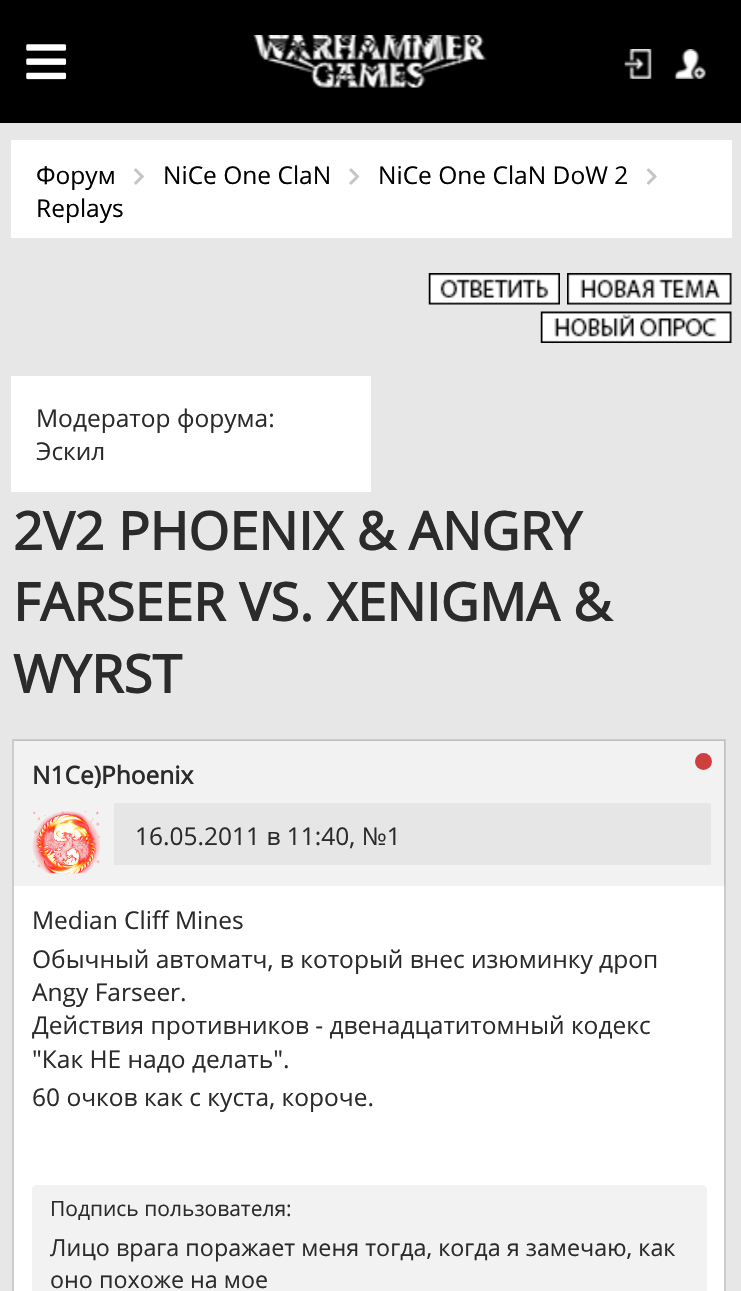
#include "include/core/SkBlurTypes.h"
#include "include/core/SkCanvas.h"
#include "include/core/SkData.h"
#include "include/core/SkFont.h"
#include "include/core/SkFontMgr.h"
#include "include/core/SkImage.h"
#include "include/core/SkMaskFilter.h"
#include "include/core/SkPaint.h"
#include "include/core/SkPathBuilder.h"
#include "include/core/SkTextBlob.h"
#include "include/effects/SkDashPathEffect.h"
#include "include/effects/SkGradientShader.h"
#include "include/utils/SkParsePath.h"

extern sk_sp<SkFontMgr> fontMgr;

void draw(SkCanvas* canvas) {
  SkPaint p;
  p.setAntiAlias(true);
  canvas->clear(SkColorSetRGB(231, 231, 231));
  p.setColor(SK_ColorBLACK);
  canvas->drawRect(SkRect::MakeLTRB(0, 0, 741, 123), p);
  canvas->drawImageRect(SkImages::DeferredFromEncodedData(SkData::MakeFromFileName("images/1.png")), SkRect::MakeLTRB(26, 44, 67, 80), SkSamplingOptions());
  canvas->drawImageRect(SkImages::DeferredFromEncodedData(SkData::MakeFromFileName("images/2.png")), SkRect::MakeLTRB(253, 35, 487, 88), SkSamplingOptions());
  canvas->drawImageRect(SkImages::DeferredFromEncodedData(SkData::MakeFromFileName("images/3.png")), SkRect::MakeLTRB(624, 49, 652, 79), SkSamplingOptions());
  canvas->drawImageRect(SkImages::DeferredFromEncodedData(SkData::MakeFromFileName("images/4.png")), SkRect::MakeLTRB(674, 49, 706, 79), SkSamplingOptions());
  p.setColor(SK_ColorWHITE);
  canvas->drawRect(SkRect::MakeLTRB(11, 140, 732, 238), p);
  canvas->drawImageRect(SkImages::DeferredFromEncodedData(SkData::MakeFromFileName("images/5.png")), SkRect::MakeLTRB(134, 168, 144, 185), SkSamplingOptions());
  canvas->drawImageRect(SkImages::DeferredFromEncodedData(SkData::MakeFromFileName("images/6.png")), SkRect::MakeLTRB(349, 168, 360, 185), SkSamplingOptions());
  canvas->drawImageRect(SkImages::DeferredFromEncodedData(SkData::MakeFromFileName("images/7.png")), SkRect::MakeLTRB(646, 168, 657, 185), SkSamplingOptions());
  canvas->drawImageRect(SkImages::DeferredFromEncodedData(SkData::MakeFromFileName("images/8.png")), SkRect::MakeLTRB(428, 273, 560, 305), SkSamplingOptions());
  canvas->drawImageRect(SkImages::DeferredFromEncodedData(SkData::MakeFromFileName("images/9.png")), SkRect::MakeLTRB(567, 273, 732, 305), SkSamplingOptions());
  canvas->drawImageRect(SkImages::DeferredFromEncodedData(SkData::MakeFromFileName("images/10.png")), SkRect::MakeLTRB(540, 311, 732, 343), SkSamplingOptions());
  canvas->drawRect(SkRect::MakeLTRB(11, 376, 371, 492), p);
  canvas->drawRect(SkRect::MakeLTRB(13, 740, 725, 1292), p);
  p.setStyle(SkPaint::kStroke_Style);
  p.setStrokeWidth(2);
  p.setColor(SkColorSetRGB(204, 204, 204));
  canvas->drawRect(SkRect::MakeLTRB(13, 740, 725, 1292), p);
  p.setStyle(SkPaint::kFill_Style);
  p.setColor(SkColorSetARGB(13, 0, 0, 0));
  canvas->drawRect(SkRect::MakeLTRB(14, 740, 725, 886), p);
  p.setColor(SkColorSetRGB(208, 62, 62));
  canvas->drawCircle(703.5f, 761.5f, 8.5f, p);
  canvas->drawImageRect(SkImages::DeferredFromEncodedData(SkData::MakeFromFileName("images/11.png")), SkRect::MakeLTRB(32, 811, 100, 874), SkSamplingOptions());
  p.setColor(SkColorSetRGB(230, 230, 230));
  canvas->drawRect(SkRect::MakeLTRB(114, 803, 711, 865), p);
  p.setColor(SkColorSetRGB(242, 242, 242));
  canvas->drawRoundRect(SkRect::MakeLTRB(32, 1185, 707, 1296), 5, 5, p);
  SkFont font1(fontMgr->matchFamilyStyle("Open Sans", SkFontStyle::Normal()), 24.5f);
  font1.setSubpixel(true);
  p.setColor(SK_ColorBLACK);
  canvas->drawString("Форум", 36, 184, font1, p);
  canvas->drawString("NiCe One ClaN", 163, 184, font1, p);
  canvas->drawString("NiCe One ClaN DoW 2", 378, 184, font1, p);
  canvas->drawString("Replays", 36, 217, font1, p);
  p.setColor(SkColorSetRGB(43, 43, 43));
  canvas->drawString("Модератор форума:", 36, 427, font1, p);
  canvas->drawString("Эскил", 36, 460, font1, p);
  SkFont font2(fontMgr->matchFamilyStyle("Open Sans", SkFontStyle::Bold()), 52.5f);
  font2.setSubpixel(true);
  canvas->drawString("2V2 PHOENIX & ANGRY", 13, 550, font2, p);
  canvas->drawString("FARSEER VS. XENIGMA &", 13, 621, font2, p);
  canvas->drawString("WYRST", 13, 693, font2, p);
  SkFont font3(fontMgr->matchFamilyStyle("Open Sans", SkFontStyle::Bold()), 24.5f);
  font3.setSubpixel(true);
  canvas->drawString("N1Ce)Phoenix", 32, 784, font3, p);
  canvas->drawString("16.05.2011 в 11:40, №1", 135, 845, font1, p);
  canvas->drawString("Median Cliff Mines", 32, 929, font1, p);
  canvas->drawString("Обычный автоматч, в который внес изюминку дроп", 32, 968, font1, p);
  canvas->drawString("Angy Farseer.", 32, 1001, font1, p);
  canvas->drawString("Действия противников - двенадцатитомный кодекс", 32, 1034, font1, p);
  canvas->drawString("\"Как НЕ надо делать\".", 32, 1068, font1, p);
  canvas->drawString("60 очков как с куста, короче.", 32, 1106, font1, p);
  SkFont font4(fontMgr->matchFamilyStyle("Open Sans", SkFontStyle::Normal()), 21);
  font4.setSubpixel(true);
  canvas->drawString("Подпись пользователя:", 50, 1216, font4, p);
  SkFont font5(fontMgr->matchFamilyStyle("Open Sans", SkFontStyle::Normal()), 23.3f);
  font5.setSubpixel(true);
  canvas->drawString("Лицо врага поражает меня тогда, когда я замечаю, как", 50, 1256, font5, p);
  canvas->drawString("оно похоже на мое", 50, 1288, font5, p);
}
